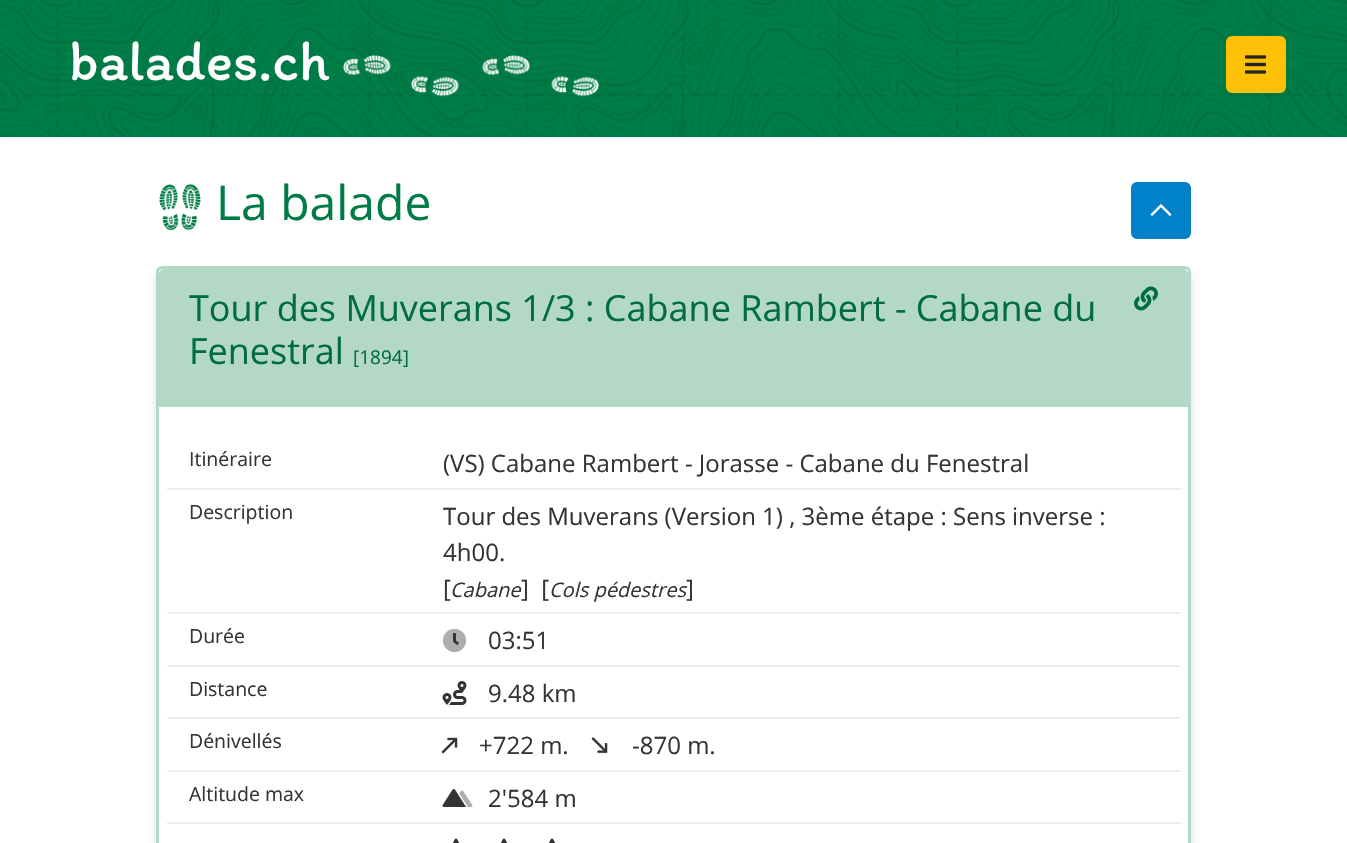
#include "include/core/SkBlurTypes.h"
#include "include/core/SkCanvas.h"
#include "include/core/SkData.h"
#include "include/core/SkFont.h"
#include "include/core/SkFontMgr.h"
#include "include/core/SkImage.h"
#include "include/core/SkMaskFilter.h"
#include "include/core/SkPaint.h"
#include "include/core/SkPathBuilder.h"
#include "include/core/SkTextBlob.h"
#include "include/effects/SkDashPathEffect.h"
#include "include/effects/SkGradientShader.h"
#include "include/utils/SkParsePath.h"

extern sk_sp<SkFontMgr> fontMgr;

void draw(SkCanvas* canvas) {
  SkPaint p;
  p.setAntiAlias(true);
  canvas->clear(SK_ColorWHITE);
  p.setColor(SkColorSetRGB(0, 124, 70));
  canvas->drawRect(SkRect::MakeLTRB(0, 136, 1347, 137), p);
  canvas->drawImageRect(SkImages::DeferredFromEncodedData(SkData::MakeFromFileName("images/1.png")), SkRect::MakeLTRB(0, 0, 1347, 137), SkSamplingOptions());
  canvas->drawImageRect(SkImages::DeferredFromEncodedData(SkData::MakeFromFileName("images/2.png")), SkRect::MakeLTRB(343, 55, 599, 97), SkSamplingOptions());
  p.setColor(SkColorSetRGB(255, 193, 7));
  canvas->drawRoundRect(SkRect::MakeLTRB(1227, 37, 1285, 92), 5, 5, p);
  p.setStyle(SkPaint::kStroke_Style);
  p.setStrokeWidth(2);
  canvas->drawRoundRect(SkRect::MakeLTRB(1227, 37, 1285, 92), 5, 5, p);
  canvas->drawImageRect(SkImages::DeferredFromEncodedData(SkData::MakeFromFileName("images/3.png")), SkRect::MakeLTRB(1245, 55, 1266, 74), SkSamplingOptions());
  canvas->drawImageRect(SkImages::DeferredFromEncodedData(SkData::MakeFromFileName("images/4.png")), SkRect::MakeLTRB(159, 183, 201, 231), SkSamplingOptions());
  p.setStyle(SkPaint::kFill_Style);
  p.setColor(SkColorSetRGB(0, 129, 200));
  canvas->drawRoundRect(SkRect::MakeLTRB(1132, 183, 1190, 238), 5, 5, p);
  p.setStyle(SkPaint::kStroke_Style);
  canvas->drawRoundRect(SkRect::MakeLTRB(1132, 183, 1190, 238), 5, 5, p);
  canvas->drawImageRect(SkImages::DeferredFromEncodedData(SkData::MakeFromFileName("images/5.png")), SkRect::MakeLTRB(1150, 204, 1172, 216), SkSamplingOptions());
  canvas->save();
  canvas->clipPath(SkPathBuilder(SkPathFillType::kEvenOdd).moveTo(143, 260).lineTo(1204, 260).lineTo(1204, 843).lineTo(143, 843).close().moveTo(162, 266).lineTo(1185, 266).cubicTo(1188.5f, 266, 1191, 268.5f, 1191, 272).lineTo(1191, 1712).cubicTo(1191, 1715.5f, 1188.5f, 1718, 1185, 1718).lineTo(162, 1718).cubicTo(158.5f, 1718, 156, 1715.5f, 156, 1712).lineTo(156, 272).cubicTo(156, 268.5f, 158.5f, 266, 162, 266).close().detach(), true);
  p.setStyle(SkPaint::kFill_Style);
  p.setColor(SkColorSetRGB(221, 221, 221));
  p.setMaskFilter(SkMaskFilter::MakeBlur(kNormal_SkBlurStyle, 4));
  canvas->drawRoundRect(SkRect::MakeLTRB(156, 273, 1191, 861), 6, 6, p);
  p.setMaskFilter(nullptr);
  canvas->restore();
  p.setStyle(SkPaint::kStroke_Style);
  p.setStrokeWidth(3);
  p.setColor(SkColorSetRGB(179, 216, 200));
  canvas->drawRoundRect(SkRect::MakeLTRB(157.5f, 267.5f, 1189.5f, 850.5f), 4.5f, 4.5f, p);
  p.setStyle(SkPaint::kFill_Style);
  canvas->drawPath(SkPathBuilder().moveTo(164, 269).lineTo(1183, 269).cubicTo(1186, 269, 1188, 271, 1188, 274).lineTo(1188, 407).lineTo(159, 407).lineTo(159, 274).cubicTo(159, 271, 161, 269, 164, 269).close().detach(), p);
  canvas->drawImageRect(SkImages::DeferredFromEncodedData(SkData::MakeFromFileName("images/6.png")), SkRect::MakeLTRB(1134, 286, 1158, 311), SkSamplingOptions());
  p.setColor(SkColorSetRGB(238, 238, 238));
  canvas->drawRect(SkRect::MakeLTRB(167, 488, 1181, 490), p);
  canvas->drawRect(SkRect::MakeLTRB(167, 612, 1181, 614), p);
  canvas->drawRect(SkRect::MakeLTRB(167, 665, 1181, 667), p);
  canvas->drawImageRect(SkImages::DeferredFromEncodedData(SkData::MakeFromFileName("images/7.png")), SkRect::MakeLTRB(442, 628, 467, 653), SkSamplingOptions());
  canvas->drawRect(SkRect::MakeLTRB(167, 717, 1181, 719), p);
  canvas->drawImageRect(SkImages::DeferredFromEncodedData(SkData::MakeFromFileName("images/8.png")), SkRect::MakeLTRB(442, 681, 467, 705), SkSamplingOptions());
  canvas->drawRect(SkRect::MakeLTRB(167, 770, 1181, 772), p);
  canvas->drawImageRect(SkImages::DeferredFromEncodedData(SkData::MakeFromFileName("images/9.png")), SkRect::MakeLTRB(441, 737, 458, 754), SkSamplingOptions());
  canvas->drawImageRect(SkImages::DeferredFromEncodedData(SkData::MakeFromFileName("images/10.png")), SkRect::MakeLTRB(591, 737, 608, 753), SkSamplingOptions());
  canvas->drawRect(SkRect::MakeLTRB(167, 822, 1181, 824), p);
  canvas->drawImageRect(SkImages::DeferredFromEncodedData(SkData::MakeFromFileName("images/11.png")), SkRect::MakeLTRB(442, 789, 473, 807), SkSamplingOptions());
  canvas->drawImageRect(SkImages::DeferredFromEncodedData(SkData::MakeFromFileName("images/12.png")), SkRect::MakeLTRB(453, 838, 460, 843), SkSamplingOptions());
  canvas->drawImageRect(SkImages::DeferredFromEncodedData(SkData::MakeFromFileName("images/12.png")), SkRect::MakeLTRB(501, 838, 508, 843), SkSamplingOptions());
  canvas->drawImageRect(SkImages::DeferredFromEncodedData(SkData::MakeFromFileName("images/12.png")), SkRect::MakeLTRB(549, 838, 556, 843), SkSamplingOptions());
  SkFont font1(fontMgr->matchFamilyStyle("Itim", SkFontStyle::Normal()), 57);
  font1.setSubpixel(true);
  p.setColor(SK_ColorWHITE);
  canvas->drawString("balades.ch", 69, 80, font1, p);
  SkFont font2(fontMgr->matchFamilyStyle("Open Sans", SkFontStyle::Normal()), 48);
  font2.setSubpixel(true);
  p.setColor(SkColorSetRGB(0, 124, 70));
  canvas->drawString("La balade", 216, 220, font2, p);
  SkFont font3(fontMgr->matchFamilyStyle("Open Sans", SkFontStyle::Normal()), 36);
  font3.setSubpixel(true);
  p.setColor(SkColorSetRGB(0, 109, 62));
  canvas->drawString("Tour des Muverans 1/3 : Cabane Rambert - Cabane du", 189, 321, font3, p);
  canvas->drawString("Fenestral", 189, 364, font3, p);
  SkFont font4(fontMgr->matchFamilyStyle("Open Sans", SkFontStyle::Normal()), 19);
  font4.setSubpixel(true);
  canvas->drawString("[1894]", 353, 364, font4, p);
  SkFont font5(fontMgr->matchFamilyStyle("Open Sans", SkFontStyle::Normal()), 19.5f);
  font5.setSubpixel(true);
  p.setColor(SkColorSetRGB(52, 52, 52));
  canvas->drawString("Itinéraire", 189, 466, font5, p);
  SkFont font6(fontMgr->matchFamilyStyle("Open Sans", SkFontStyle::Normal()), 24);
  font6.setSubpixel(true);
  canvas->drawString("(VS) Cabane Rambert - Jorasse - Cabane du Fenestral", 443, 472, font6, p);
  canvas->drawString("Description", 189, 519, font5, p);
  canvas->drawString("Tour des Muverans (Version 1) , 3ème étape : Sens inverse :", 443, 525, font6, p);
  canvas->drawString("4h00.", 443, 561, font6, p);
  canvas->drawString("[", 443, 597, font6, p);
  SkFont font7(fontMgr->matchFamilyStyle("Open Sans", SkFontStyle::Italic()), 20);
  font7.setSubpixel(true);
  canvas->drawString("Cabane", 450, 597, font7, p);
  canvas->drawString("]  [", 521, 597, font6, p);
  canvas->drawString("Cols pédestres", 549, 597, font7, p);
  canvas->drawString("]", 686, 597, font6, p);
  canvas->drawString("Durée", 189, 643, font5, p);
  canvas->drawString("03:51", 488, 649, font6, p);
  canvas->drawString("Distance", 189, 696, font5, p);
  canvas->drawString("9.48 km", 488, 702, font6, p);
  canvas->drawString("Dénivellés", 189, 748, font5, p);
  canvas->drawString("+722 m.", 479, 754, font6, p);
  canvas->drawString("-870 m.", 632, 754, font6, p);
  canvas->drawString("Altitude max", 189, 801, font5, p);
  canvas->drawString("2'584 m", 488, 807, font6, p);
}
